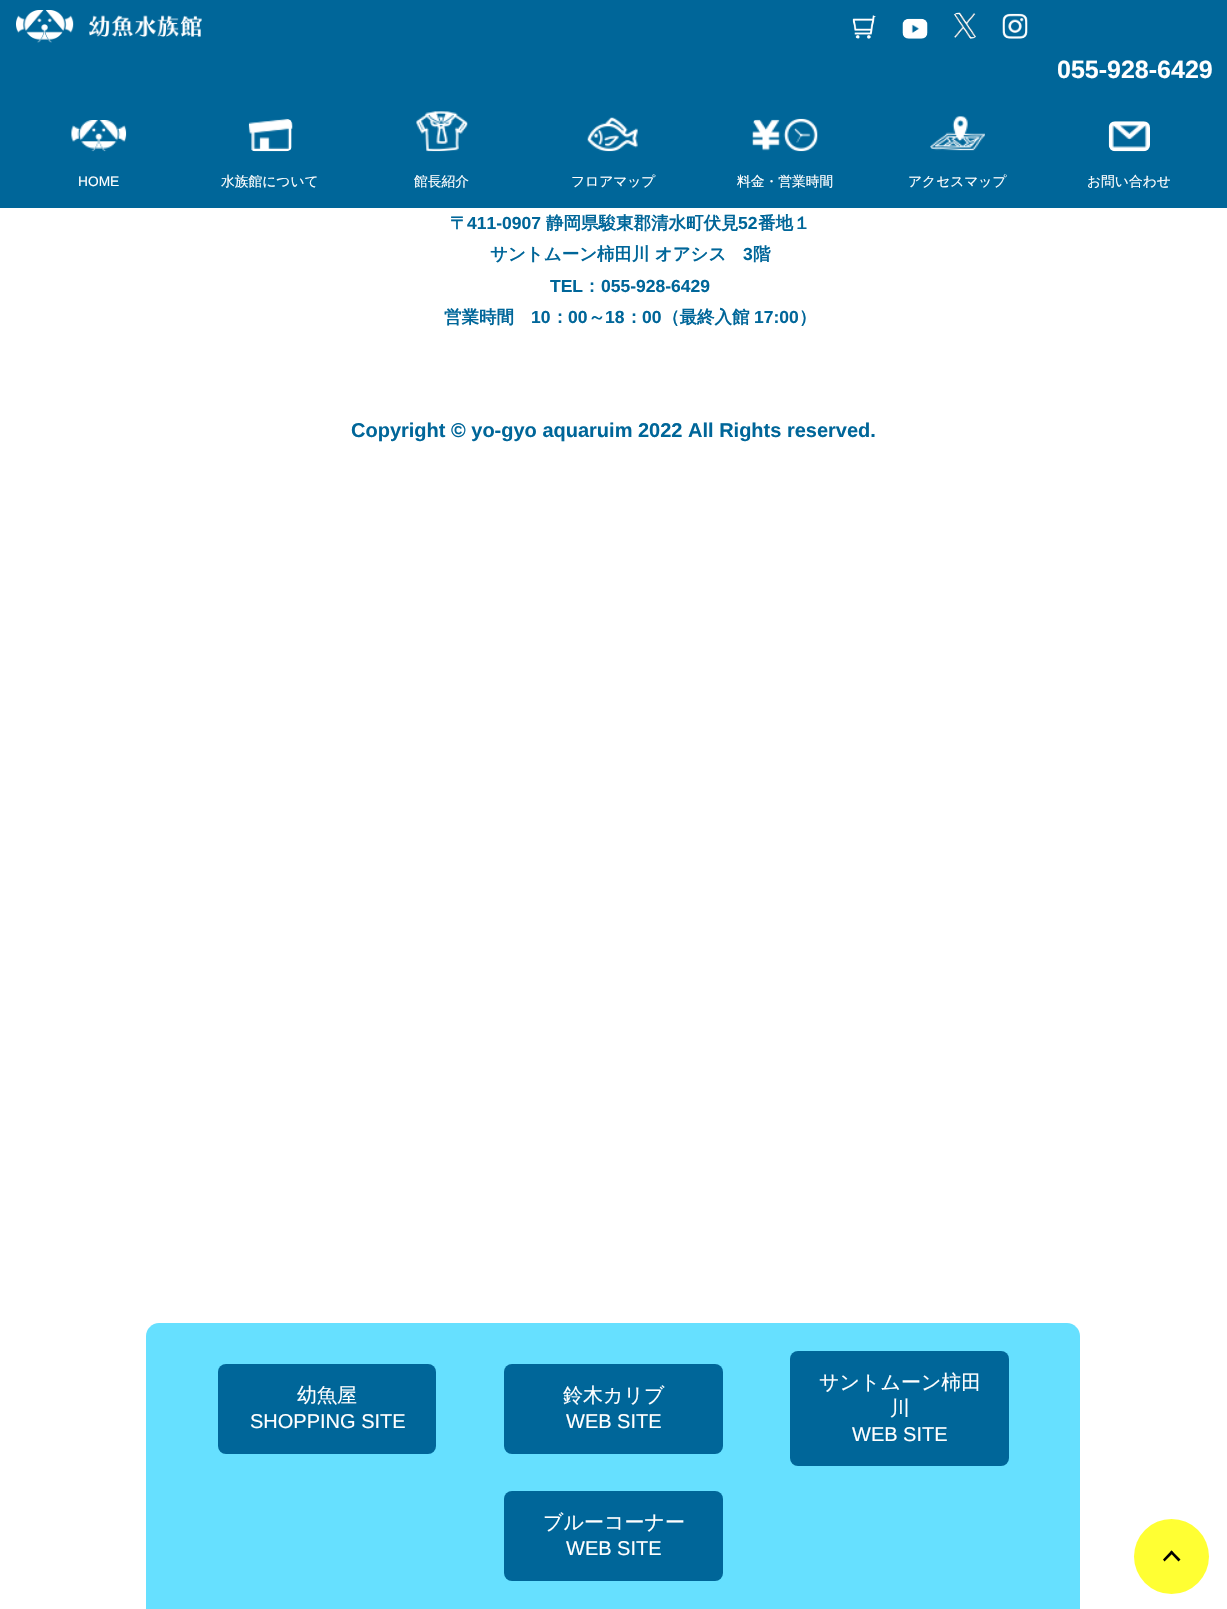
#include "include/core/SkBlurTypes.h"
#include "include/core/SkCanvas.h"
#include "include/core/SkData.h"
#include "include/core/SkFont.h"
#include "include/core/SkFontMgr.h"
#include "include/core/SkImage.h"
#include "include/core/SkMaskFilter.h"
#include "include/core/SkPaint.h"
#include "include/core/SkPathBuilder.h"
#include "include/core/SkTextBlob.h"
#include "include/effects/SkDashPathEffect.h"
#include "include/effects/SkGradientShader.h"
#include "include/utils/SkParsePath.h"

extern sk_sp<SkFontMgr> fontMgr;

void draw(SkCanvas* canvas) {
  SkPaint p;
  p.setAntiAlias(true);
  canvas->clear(SK_ColorWHITE);
  p.setColor(SkColorSetRGB(0, 102, 153));
  canvas->drawRect(SkRect::MakeLTRB(0, 0, 1227, 208), p);
  canvas->drawImageRect(SkImages::DeferredFromEncodedData(SkData::MakeFromFileName("images/1.png")), SkRect::MakeLTRB(16, 10, 202, 43), SkSamplingOptions());
  canvas->drawImageRect(SkImages::DeferredFromEncodedData(SkData::MakeFromFileName("images/2.png")), SkRect::MakeLTRB(852, 15, 876, 39), SkSamplingOptions());
  canvas->drawImageRect(SkImages::DeferredFromEncodedData(SkData::MakeFromFileName("images/3.png")), SkRect::MakeLTRB(902, 18, 928, 39), SkSamplingOptions());
  canvas->drawImageRect(SkImages::DeferredFromEncodedData(SkData::MakeFromFileName("images/4.png")), SkRect::MakeLTRB(953, 12, 976, 39), SkSamplingOptions());
  canvas->drawImageRect(SkImages::DeferredFromEncodedData(SkData::MakeFromFileName("images/5.png")), SkRect::MakeLTRB(1002, 13, 1028, 39), SkSamplingOptions());
  canvas->drawImageRect(SkImages::DeferredFromEncodedData(SkData::MakeFromFileName("images/6.png")), SkRect::MakeLTRB(71, 120, 127, 152), SkSamplingOptions());
  canvas->drawImageRect(SkImages::DeferredFromEncodedData(SkData::MakeFromFileName("images/7.png")), SkRect::MakeLTRB(248, 118, 293, 152), SkSamplingOptions());
  canvas->drawImageRect(SkImages::DeferredFromEncodedData(SkData::MakeFromFileName("images/8.png")), SkRect::MakeLTRB(416, 111, 468, 152), SkSamplingOptions());
  canvas->drawImageRect(SkImages::DeferredFromEncodedData(SkData::MakeFromFileName("images/9.png")), SkRect::MakeLTRB(587, 117, 638, 152), SkSamplingOptions());
  canvas->drawImageRect(SkImages::DeferredFromEncodedData(SkData::MakeFromFileName("images/10.png")), SkRect::MakeLTRB(752, 118, 818, 152), SkSamplingOptions());
  canvas->drawImageRect(SkImages::DeferredFromEncodedData(SkData::MakeFromFileName("images/11.png")), SkRect::MakeLTRB(930, 116, 985, 151), SkSamplingOptions());
  canvas->drawImageRect(SkImages::DeferredFromEncodedData(SkData::MakeFromFileName("images/12.png")), SkRect::MakeLTRB(1108, 121, 1150, 152), SkSamplingOptions());
  p.setColor(SkColorSetRGB(102, 224, 255));
  canvas->drawPath(SkPathBuilder().moveTo(159, 1323).lineTo(1067, 1323).cubicTo(1074, 1323, 1080, 1329, 1080, 1336).lineTo(1080, 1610).lineTo(146, 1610).lineTo(146, 1336).cubicTo(146, 1329, 152, 1323, 159, 1323).close().detach(), p);
  p.setColor(SkColorSetRGB(0, 102, 153));
  canvas->drawRoundRect(SkRect::MakeLTRB(218, 1364, 436, 1454), 8, 8, p);
  canvas->drawRoundRect(SkRect::MakeLTRB(504, 1364, 723, 1454), 8, 8, p);
  canvas->drawRoundRect(SkRect::MakeLTRB(790, 1351, 1009, 1466), 8, 8, p);
  canvas->drawRoundRect(SkRect::MakeLTRB(504, 1491, 723, 1581), 8, 8, p);
  p.setColor(SkColorSetRGB(255, 255, 51));
  canvas->drawCircle(1171.5f, 1556.5f, 37.5f, p);
  p.setColor(SK_ColorBLACK);
  canvas->drawPath(SkPathBuilder().moveTo(1163, 1559.5f).lineTo(1171.5f, 1550.5f).lineTo(1173.5f, 1552.5f).lineTo(1164.5f, 1561.5f).close().detach(), p);
  canvas->drawPath(SkPathBuilder().moveTo(1170, 1552.5f).lineTo(1171.5f, 1550.5f).lineTo(1180.5f, 1559.5f).lineTo(1178.5f, 1561.5f).close().detach(), p);
  SkFont font1(fontMgr->matchFamilyStyle("Liberation Sans", SkFontStyle::Bold()), 25);
  font1.setSubpixel(true);
  p.setColor(SK_ColorWHITE);
  canvas->drawString("055-928-6429", 1057, 78, font1, p);
  SkFont font2(fontMgr->matchFamilyStyle("Liberation Sans", SkFontStyle::Normal()), 13.75f);
  font2.setSubpixel(true);
  canvas->drawString("HOME", 78, 186, font2, p);
  SkFont font3(fontMgr->matchFamilyStyle("WenQuanYi Zen Hei", SkFontStyle(500, SkFontStyle::kNormal_Width, SkFontStyle::kUpright_Slant)), 13.75f);
  font3.setSubpixel(true);
  canvas->drawString("水族館について", 221, 186, font3, p);
  canvas->drawString("館長紹介", 414, 186, font3, p);
  canvas->drawString("フロアマップ", 571, 186, font3, p);
  canvas->drawString("料金・営業時間", 737, 186, font3, p);
  canvas->drawString("アクセスマップ", 908, 186, font3, p);
  canvas->drawString("お問い合わせ", 1087, 186, font3, p);
  SkFont font4(fontMgr->matchFamilyStyle("WenQuanYi Zen Hei", SkFontStyle::Bold()), 17.5f);
  font4.setSubpixel(true);
  p.setColor(SkColorSetRGB(0, 102, 153));
  canvas->drawString("〒", 450, 229, font4, p);
  SkFont font5(fontMgr->matchFamilyStyle("Liberation Sans", SkFontStyle::Bold()), 17.5f);
  font5.setSubpixel(true);
  canvas->drawString("411-0907", 467, 229, font5, p);
  canvas->drawString("静岡県駿東郡清水町伏見", 546, 229, font4, p);
  canvas->drawString("52", 738, 229, font5, p);
  canvas->drawString("番地１", 758, 229, font4, p);
  canvas->drawString("サントムーン柿田川 オアシス", 490, 260, font4, p);
  canvas->drawString("3", 743, 260, font5, p);
  canvas->drawString("階", 753, 260, font4, p);
  canvas->drawString("TEL", 550, 292, font5, p);
  canvas->drawString("：", 583, 292, font4, p);
  canvas->drawString("055-928-6429", 601, 292, font5, p);
  canvas->drawString("営業時間", 444, 323, font4, p);
  canvas->drawString("10", 531, 323, font5, p);
  canvas->drawString("：", 551, 323, font4, p);
  canvas->drawString("00", 568, 323, font5, p);
  canvas->drawString("～", 588, 323, font4, p);
  canvas->drawString("18", 605, 323, font5, p);
  canvas->drawString("：", 625, 323, font4, p);
  canvas->drawString("00", 642, 323, font5, p);
  canvas->drawString("（最終入館", 662, 323, font4, p);
  canvas->drawString("17:00", 754, 323, font5, p);
  canvas->drawString("）", 799, 323, font4, p);
  SkFont font6(fontMgr->matchFamilyStyle("Liberation Sans", SkFontStyle::Bold()), 20);
  font6.setSubpixel(true);
  canvas->drawString("Copyright © yo-gyo aquaruim 2022 All Rights reserved.", 351, 437, font6, p);
  SkFont font7(fontMgr->matchFamilyStyle("WenQuanYi Zen Hei", SkFontStyle(500, SkFontStyle::kNormal_Width, SkFontStyle::kUpright_Slant)), 20);
  font7.setSubpixel(true);
  p.setColor(SK_ColorWHITE);
  canvas->drawString("幼魚屋", 297, 1402, font7, p);
  SkFont font8(fontMgr->matchFamilyStyle("Liberation Sans", SkFontStyle::Normal()), 20);
  font8.setSubpixel(true);
  canvas->drawString("SHOPPING SITE", 250, 1428, font8, p);
  canvas->drawString("鈴木カリブ", 563, 1402, font7, p);
  canvas->drawString("WEB SITE", 566, 1428, font8, p);
  canvas->drawString("サントムーン柿田", 819, 1389, font7, p);
  canvas->drawString("川", 890, 1415, font7, p);
  canvas->drawString("WEB SITE", 852, 1441, font8, p);
  canvas->drawString("ブルーコーナー", 543, 1529, font7, p);
  canvas->drawString("WEB SITE", 566, 1555, font8, p);
}
